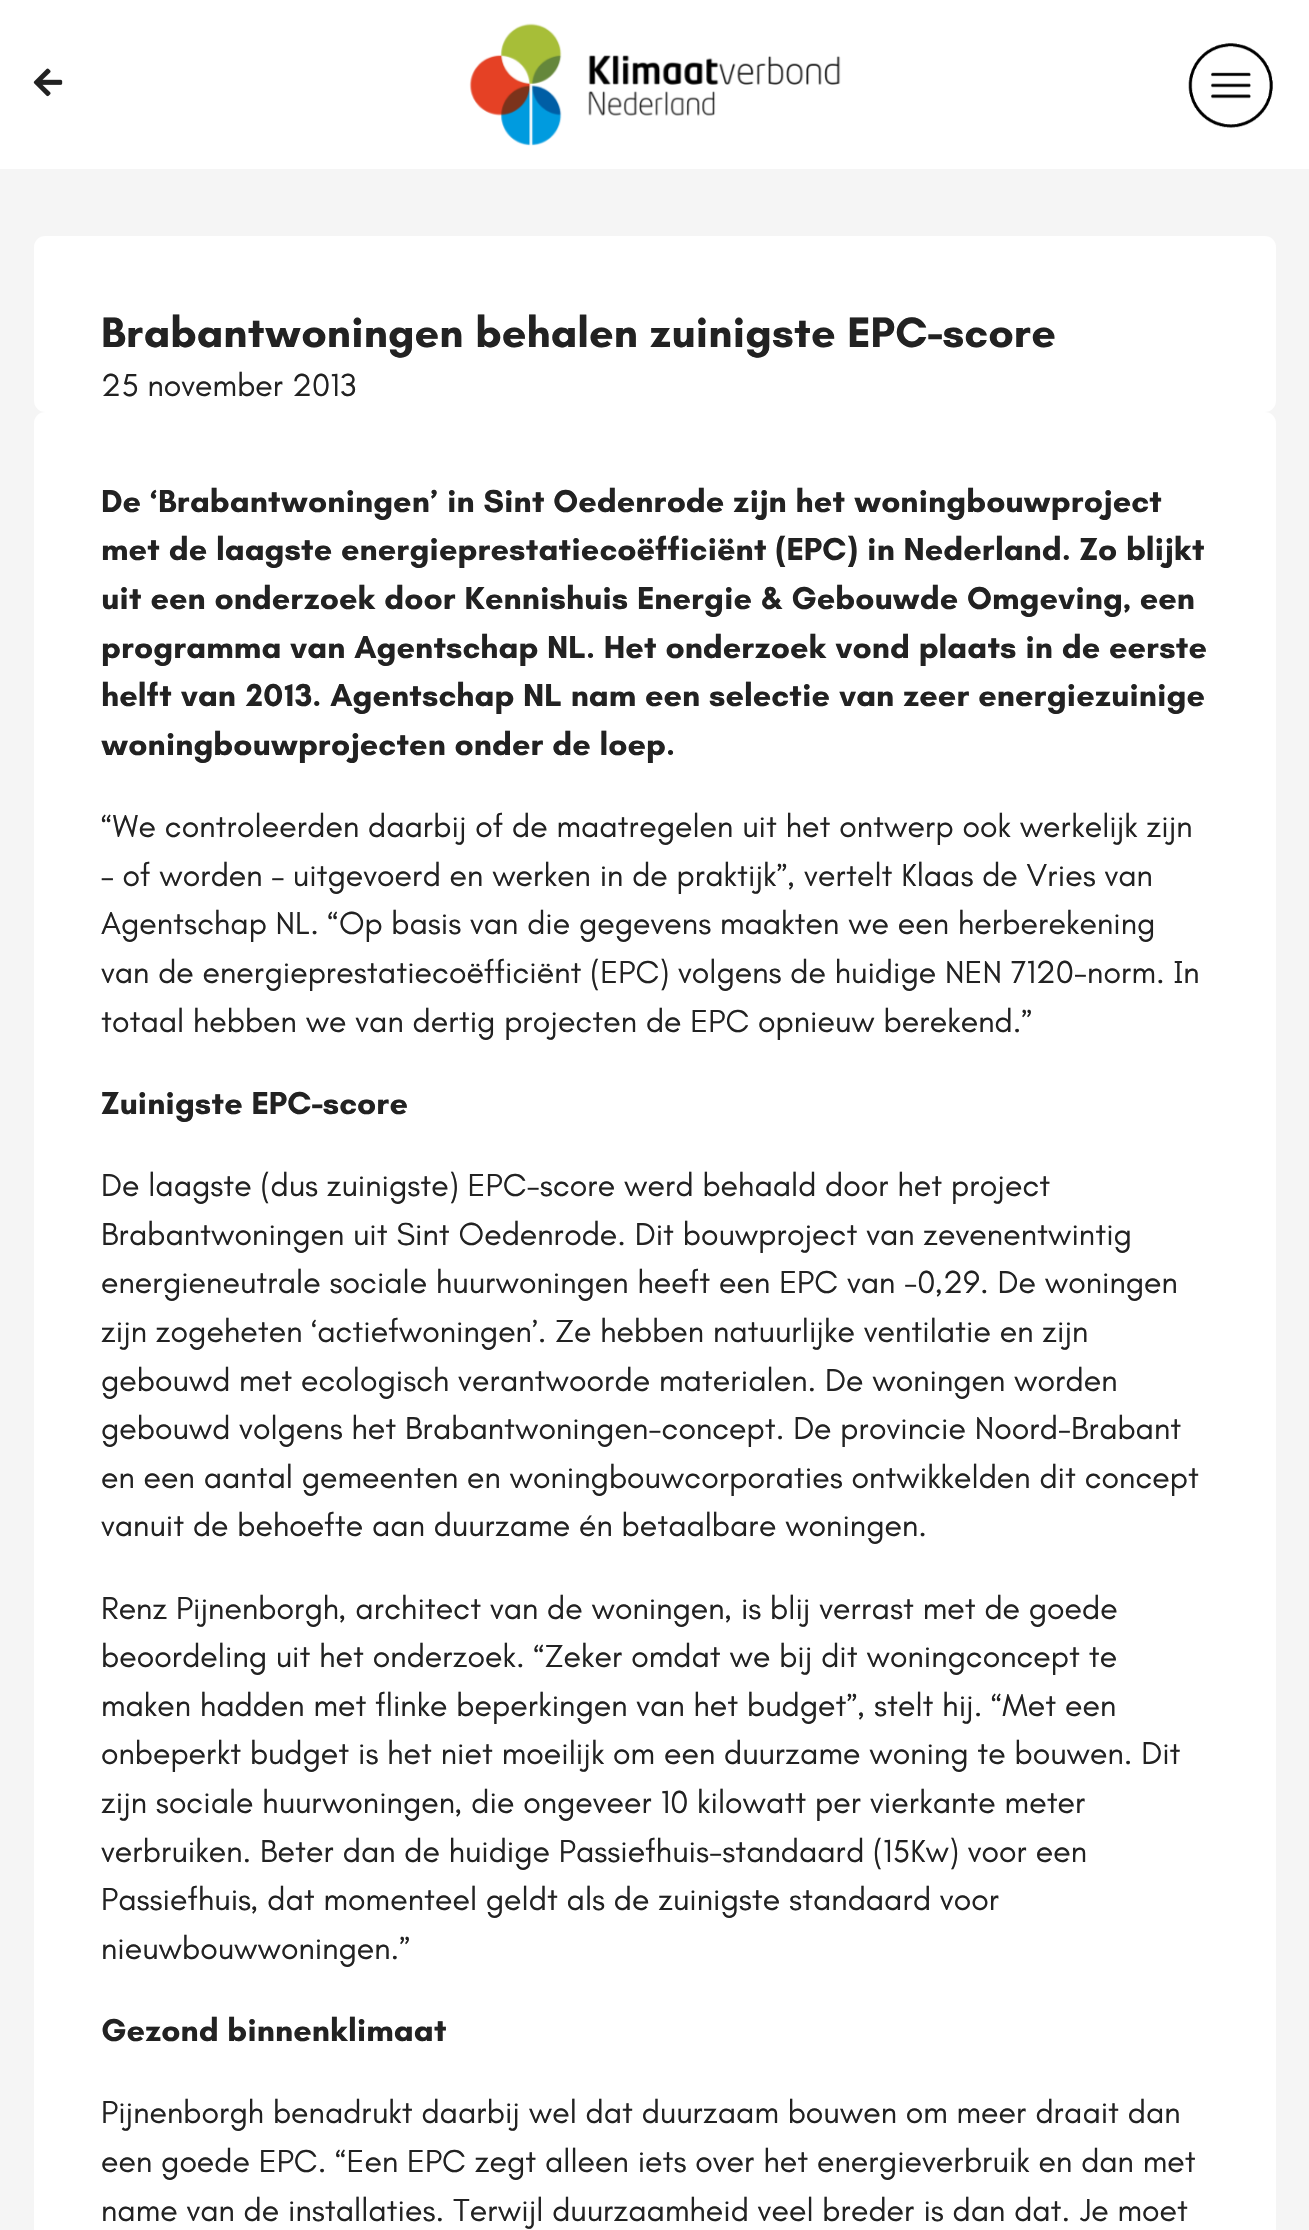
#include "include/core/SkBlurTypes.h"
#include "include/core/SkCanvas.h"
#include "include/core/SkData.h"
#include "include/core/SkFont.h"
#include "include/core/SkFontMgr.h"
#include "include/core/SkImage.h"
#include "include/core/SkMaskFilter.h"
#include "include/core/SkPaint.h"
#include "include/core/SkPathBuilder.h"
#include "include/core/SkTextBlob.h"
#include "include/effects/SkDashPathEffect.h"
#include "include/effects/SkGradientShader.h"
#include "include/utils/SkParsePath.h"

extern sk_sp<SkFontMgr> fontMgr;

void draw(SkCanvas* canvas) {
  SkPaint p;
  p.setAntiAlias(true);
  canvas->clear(SkColorSetRGB(245, 245, 245));
  p.setColor(SK_ColorWHITE);
  canvas->drawRect(SkRect::MakeLTRB(0, 0, 1309, 169), p);
  canvas->drawImageRect(SkImages::DeferredFromEncodedData(SkData::MakeFromFileName("images/1.png")), SkRect::MakeLTRB(33, 68, 63, 97), SkSamplingOptions());
  canvas->drawImageRect(SkImages::DeferredFromEncodedData(SkData::MakeFromFileName("images/2.png")), SkRect::MakeLTRB(469, 23, 841, 146), SkSamplingOptions());
  canvas->drawImageRect(SkImages::DeferredFromEncodedData(SkData::MakeFromFileName("images/3.png")), SkRect::MakeLTRB(1188, 43, 1273, 128), SkSamplingOptions());
  canvas->drawRoundRect(SkRect::MakeLTRB(34, 236, 1276, 412), 11, 11, p);
  canvas->drawRoundRect(SkRect::MakeLTRB(34, 412, 1276, 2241), 11, 11, p);
  SkFont font1(fontMgr->matchFamilyStyle("Teachers", SkFontStyle::Bold()), 43.2f);
  font1.setSubpixel(true);
  p.setColor(SkColorSetRGB(34, 34, 34));
  canvas->drawString("Brabantwoningen behalen zuinigste EPC-score", 101, 347, font1, p);
  SkFont font2(fontMgr->matchFamilyStyle("Teachers", SkFontStyle::Normal()), 32.4f);
  font2.setSubpixel(true);
  canvas->drawString("25 november 2013", 101, 396, font2, p);
  SkFont font3(fontMgr->matchFamilyStyle("Teachers", SkFontStyle::Bold()), 32.4f);
  font3.setSubpixel(true);
  canvas->drawString("De ‘Brabantwoningen’ in Sint Oedenrode zijn het woningbouwproject", 101, 512, font3, p);
  canvas->drawString("met de laagste energieprestatiecoëfficiënt (EPC) in Nederland. Zo blijkt", 101, 560, font3, p);
  canvas->drawString("uit een onderzoek door Kennishuis Energie & Gebouwde Omgeving, een", 101, 609, font3, p);
  canvas->drawString("programma van Agentschap NL. Het onderzoek vond plaats in de eerste", 101, 658, font3, p);
  canvas->drawString("helft van 2013. Agentschap NL nam een selectie van zeer energiezuinige", 101, 706, font3, p);
  canvas->drawString("woningbouwprojecten onder de loep.", 101, 755, font3, p);
  canvas->drawString("“We controleerden daarbij of de maatregelen uit het ontwerp ook werkelijk zijn", 101, 837, font2, p);
  canvas->drawString("– of worden – uitgevoerd en werken in de praktijk”, vertelt Klaas de Vries van", 101, 886, font2, p);
  canvas->drawString("Agentschap NL. “Op basis van die gegevens maakten we een herberekening", 101, 934, font2, p);
  canvas->drawString("van de energieprestatiecoëfficiënt (EPC) volgens de huidige NEN 7120-norm. In", 101, 983, font2, p);
  canvas->drawString("totaal hebben we van dertig projecten de EPC opnieuw berekend.”", 101, 1032, font2, p);
  canvas->drawString("Zuinigste EPC-score", 101, 1114, font3, p);
  canvas->drawString("De laagste (dus zuinigste) EPC-score werd behaald door het project", 101, 1196, font2, p);
  canvas->drawString("Brabantwoningen uit Sint Oedenrode. Dit bouwproject van zevenentwintig", 101, 1245, font2, p);
  canvas->drawString("energieneutrale sociale huurwoningen heeft een EPC van -0,29. De woningen", 101, 1293, font2, p);
  canvas->drawString("zijn zogeheten ‘actiefwoningen’. Ze hebben natuurlijke ventilatie en zijn", 101, 1342, font2, p);
  canvas->drawString("gebouwd met ecologisch verantwoorde materialen. De woningen worden", 101, 1391, font2, p);
  canvas->drawString("gebouwd volgens het Brabantwoningen-concept. De provincie Noord-Brabant", 101, 1439, font2, p);
  canvas->drawString("en een aantal gemeenten en woningbouwcorporaties ontwikkelden dit concept", 101, 1488, font2, p);
  canvas->drawString("vanuit de behoefte aan duurzame én betaalbare woningen.", 101, 1536, font2, p);
  canvas->drawString("Renz Pijnenborgh, architect van de woningen, is blij verrast met de goede", 101, 1619, font2, p);
  canvas->drawString("beoordeling uit het onderzoek. “Zeker omdat we bij dit woningconcept te", 101, 1667, font2, p);
  canvas->drawString("maken hadden met flinke beperkingen van het budget”, stelt hij. “Met een", 101, 1716, font2, p);
  canvas->drawString("onbeperkt budget is het niet moeilijk om een duurzame woning te bouwen. Dit", 101, 1764, font2, p);
  canvas->drawString("zijn sociale huurwoningen, die ongeveer 10 kilowatt per vierkante meter", 101, 1813, font2, p);
  canvas->drawString("verbruiken. Beter dan de huidige Passiefhuis-standaard (15Kw) voor een", 101, 1862, font2, p);
  canvas->drawString("Passiefhuis, dat momenteel geldt als de zuinigste standaard voor", 101, 1910, font2, p);
  canvas->drawString("nieuwbouwwoningen.”", 101, 1959, font2, p);
  canvas->drawString("Gezond binnenklimaat", 101, 2041, font3, p);
  canvas->drawString("Pijnenborgh benadrukt daarbij wel dat duurzaam bouwen om meer draait dan", 101, 2123, font2, p);
  canvas->drawString("een goede EPC. “Een EPC zegt alleen iets over het energieverbruik en dan met", 101, 2172, font2, p);
  canvas->drawString("name van de installaties. Terwijl duurzaamheid veel breder is dan dat. Je moet", 101, 2221, font2, p);
}
